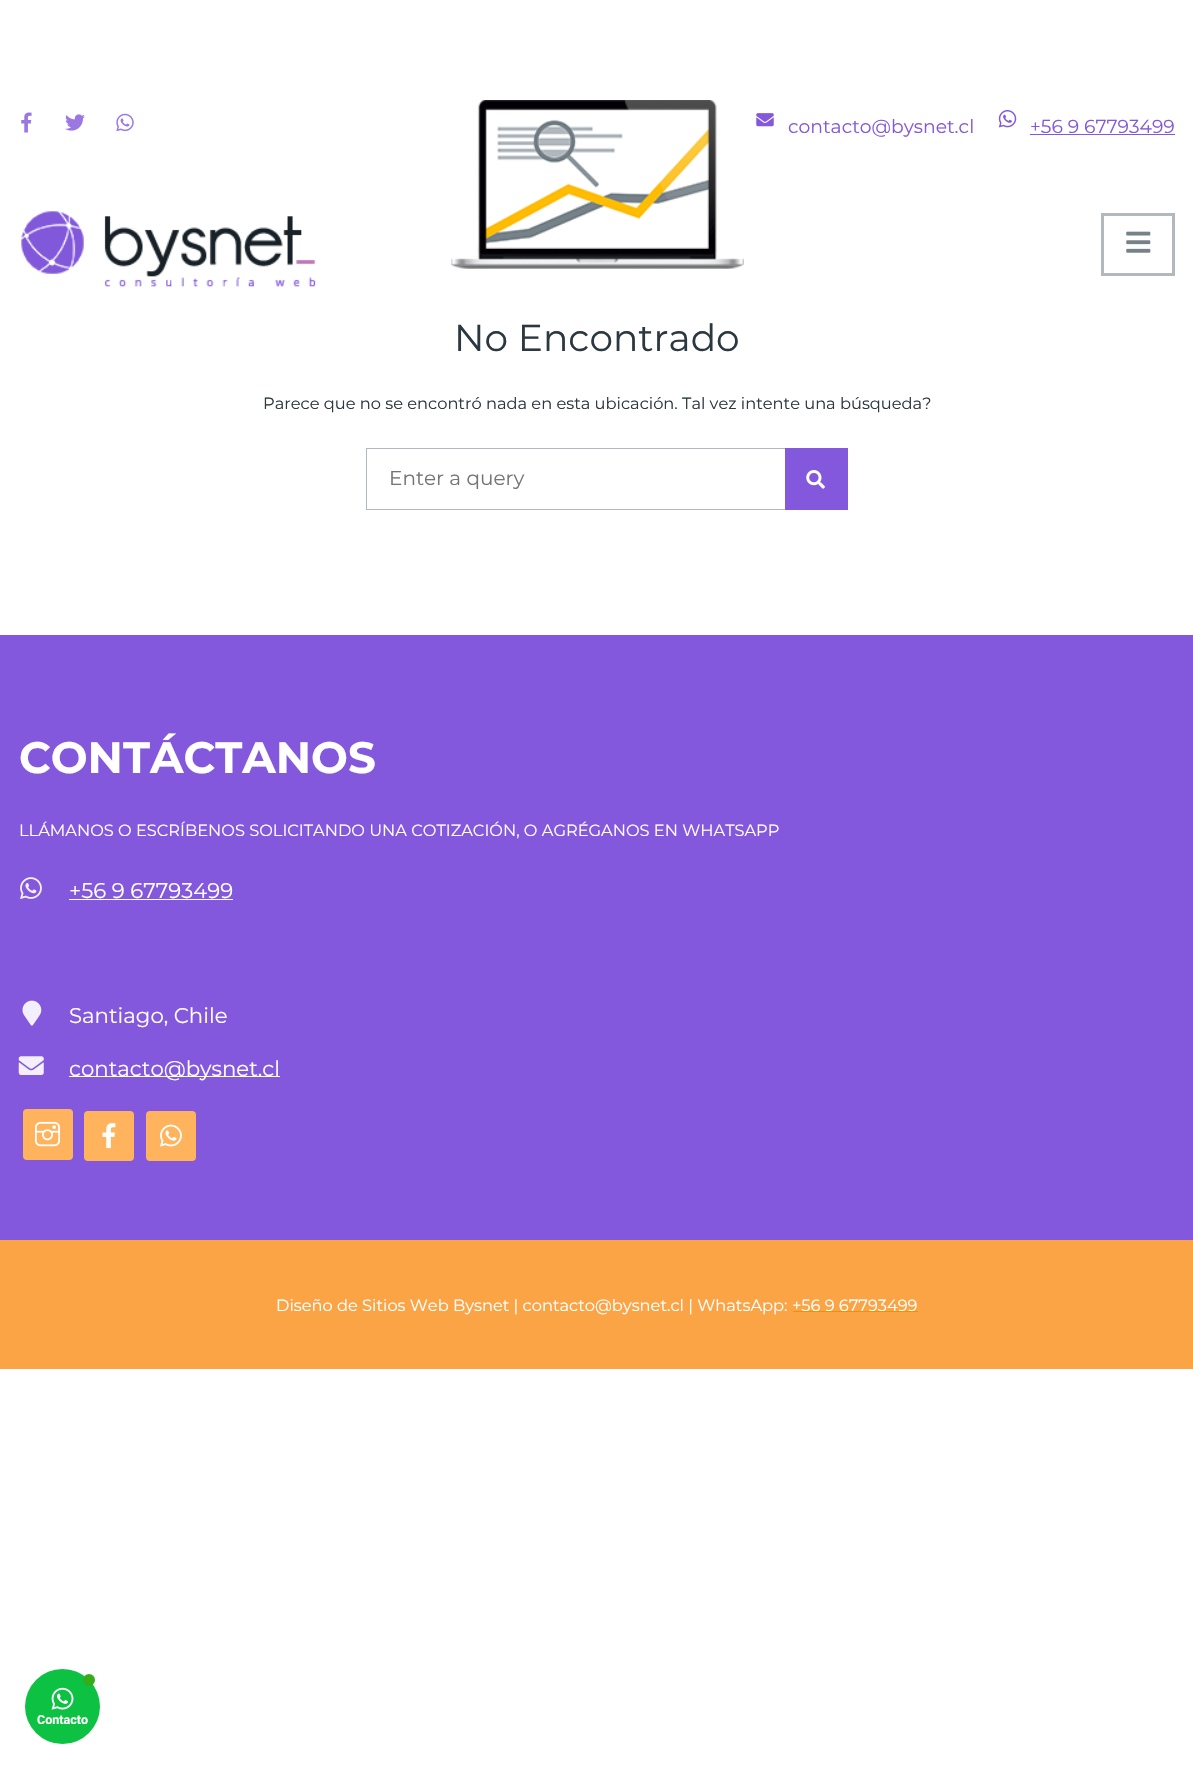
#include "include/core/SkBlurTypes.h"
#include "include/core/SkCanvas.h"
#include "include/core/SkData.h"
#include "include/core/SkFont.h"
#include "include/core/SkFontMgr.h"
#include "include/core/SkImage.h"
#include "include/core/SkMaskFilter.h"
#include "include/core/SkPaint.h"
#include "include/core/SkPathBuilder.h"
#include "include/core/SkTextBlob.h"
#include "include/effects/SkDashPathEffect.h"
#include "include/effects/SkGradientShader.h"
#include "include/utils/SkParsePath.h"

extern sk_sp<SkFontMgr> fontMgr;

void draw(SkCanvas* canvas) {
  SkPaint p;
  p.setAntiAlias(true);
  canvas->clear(SK_ColorWHITE);
  canvas->drawImageRect(SkImages::DeferredFromEncodedData(SkData::MakeFromFileName("images/1.png")), SkRect::MakeLTRB(21, 112, 32, 133), SkSamplingOptions());
  canvas->drawImageRect(SkImages::DeferredFromEncodedData(SkData::MakeFromFileName("images/2.png")), SkRect::MakeLTRB(65, 114, 85, 131), SkSamplingOptions());
  canvas->drawImageRect(SkImages::DeferredFromEncodedData(SkData::MakeFromFileName("images/3.png")), SkRect::MakeLTRB(116, 113, 134, 132), SkSamplingOptions());
  canvas->drawImageRect(SkImages::DeferredFromEncodedData(SkData::MakeFromFileName("images/4.png")), SkRect::MakeLTRB(756, 113, 774, 127), SkSamplingOptions());
  canvas->drawImageRect(SkImages::DeferredFromEncodedData(SkData::MakeFromFileName("images/5.png")), SkRect::MakeLTRB(998, 110, 1017, 128), SkSamplingOptions());
  p.setColor(SkColorSetRGB(131, 88, 220));
  canvas->drawRect(SkRect::MakeLTRB(1030, 134, 1175, 135), p);
  canvas->drawImageRect(SkImages::DeferredFromEncodedData(SkData::MakeFromFileName("images/6.png")), SkRect::MakeLTRB(21, 211, 316, 287), SkSamplingOptions());
  p.setStyle(SkPaint::kStroke_Style);
  p.setStrokeWidth(3);
  p.setColor(SkColorSetRGB(178, 185, 190));
  canvas->drawRect(SkRect::MakeLTRB(1102.5f, 214.5f, 1173.5f, 274.5f), p);
  canvas->drawImageRect(SkImages::DeferredFromEncodedData(SkData::MakeFromFileName("images/7.png")), SkRect::MakeLTRB(1126, 231, 1151, 253), SkSamplingOptions());
  canvas->drawImageRect(SkImages::DeferredFromEncodedData(SkData::MakeFromFileName("images/8.png")), SkRect::MakeLTRB(451, 100, 744, 269), SkSamplingOptions());
  p.setStrokeWidth(1);
  canvas->drawRect(SkRect::MakeLTRB(366.5f, 448.5f, 847.5f, 509.5f), p);
  p.setStyle(SkPaint::kFill_Style);
  p.setColor(SkColorSetRGB(131, 88, 220));
  canvas->drawRect(SkRect::MakeLTRB(785, 448, 848, 510), p);
  canvas->drawImageRect(SkImages::DeferredFromEncodedData(SkData::MakeFromFileName("images/9.png")), SkRect::MakeLTRB(806, 470, 825, 489), SkSamplingOptions());
  canvas->drawRect(SkRect::MakeLTRB(0, 635, 1193, 1240), p);
  canvas->drawImageRect(SkImages::DeferredFromEncodedData(SkData::MakeFromFileName("images/10.png")), SkRect::MakeLTRB(20, 877, 42, 899), SkSamplingOptions());
  p.setColor(SK_ColorWHITE);
  canvas->drawRect(SkRect::MakeLTRB(69, 899, 233, 900), p);
  canvas->drawImageRect(SkImages::DeferredFromEncodedData(SkData::MakeFromFileName("images/11.png")), SkRect::MakeLTRB(22, 1000, 42, 1026), SkSamplingOptions());
  canvas->drawImageRect(SkImages::DeferredFromEncodedData(SkData::MakeFromFileName("images/12.png")), SkRect::MakeLTRB(18, 1056, 44, 1075), SkSamplingOptions());
  canvas->drawRect(SkRect::MakeLTRB(69, 1076, 280, 1077), p);
  p.setColor(SkColorSetRGB(255, 179, 92));
  canvas->drawRoundRect(SkRect::MakeLTRB(23, 1109, 73, 1160), 4, 4, p);
  canvas->drawImageRect(SkImages::DeferredFromEncodedData(SkData::MakeFromFileName("images/13.png")), SkRect::MakeLTRB(35, 1121, 60, 1147), SkSamplingOptions());
  canvas->drawRoundRect(SkRect::MakeLTRB(84, 1111, 134, 1161), 4, 4, p);
  canvas->drawImageRect(SkImages::DeferredFromEncodedData(SkData::MakeFromFileName("images/14.png")), SkRect::MakeLTRB(102, 1123, 116, 1149), SkSamplingOptions());
  canvas->drawRoundRect(SkRect::MakeLTRB(146, 1111, 196, 1161), 4, 4, p);
  canvas->drawImageRect(SkImages::DeferredFromEncodedData(SkData::MakeFromFileName("images/15.png")), SkRect::MakeLTRB(160, 1124, 182, 1147), SkSamplingOptions());
  p.setColor(SkColorSetRGB(251, 164, 70));
  canvas->drawRect(SkRect::MakeLTRB(0, 1240, 1193, 1369), p);
  p.setColor(SkColorSetRGB(238, 146, 0));
  canvas->drawRect(SkRect::MakeLTRB(793, 1311, 918, 1312), p);
  p.setColor(SkColorSetRGB(13, 193, 67));
  canvas->drawCircle(62.5f, 1706.5f, 37.5f, p);
  p.setColor(SkColorSetRGB(53, 172, 25));
  canvas->drawCircle(89, 1680, 6, p);
  canvas->drawImageRect(SkImages::DeferredFromEncodedData(SkData::MakeFromFileName("images/16.png")), SkRect::MakeLTRB(51, 1687, 74, 1710), SkSamplingOptions());
  SkFont font1(fontMgr->matchFamilyStyle("Montserrat", SkFontStyle::Normal()), 18.75f);
  font1.setSubpixel(true);
  p.setColor(SkColorSetRGB(131, 88, 220));
  canvas->drawString("contacto@bysnet.cl", 788, 133, font1, p);
  canvas->drawString("+56 9 67793499", 1030, 133, font1, p);
  SkFont font2(fontMgr->matchFamilyStyle("Montserrat", SkFontStyle::Normal()), 37.5f);
  font2.setSubpixel(true);
  p.setColor(SkColorSetRGB(44, 56, 64));
  canvas->drawString("No Encontrado", 454, 351, font2, p);
  SkFont font3(fontMgr->matchFamilyStyle("Montserrat", SkFontStyle::Normal()), 16.25f);
  font3.setSubpixel(true);
  canvas->drawString("Parece que no se encontró nada en esta ubicación. Tal vez intente una búsqueda?", 263, 409, font3, p);
  SkFont font4(fontMgr->matchFamilyStyle("Montserrat", SkFontStyle::Normal()), 20);
  font4.setSubpixel(true);
  p.setColor(SkColorSetRGB(117, 117, 117));
  canvas->drawString("Enter a query", 389, 485, font4, p);
  SkFont font5(fontMgr->matchFamilyStyle("Montserrat", SkFontStyle(100, SkFontStyle::kNormal_Width, SkFontStyle::kUpright_Slant)), 43.75f);
  font5.setSubpixel(true);
  p.setColor(SK_ColorWHITE);
  canvas->drawString("CONTÁCTANOS", 19, 773, font5, p);
  canvas->drawString("LLÁMANOS O ESCRÍBENOS SOLICITANDO UNA COTIZACIÓN, O AGRÉGANOS EN WHATSAPP", 19, 836, font3, p);
  SkFont font6(fontMgr->matchFamilyStyle("Montserrat", SkFontStyle::Normal()), 21.25f);
  font6.setSubpixel(true);
  canvas->drawString("+56 9 67793499", 69, 898, font6, p);
  canvas->drawString("Santiago, Chile", 69, 1023, font6, p);
  canvas->drawString("contacto@bysnet.cl", 69, 1076, font6, p);
  canvas->drawString("Diseño de Sitios Web Bysnet | contacto@bysnet.cl | WhatsApp:", 276, 1311, font3, p);
  canvas->drawString("+56 9 67793499", 792, 1311, font3, p);
  SkFont font7(fontMgr->matchFamilyStyle("Roboto", SkFontStyle::Bold()), 12.5f);
  font7.setSubpixel(true);
  canvas->drawString("Contacto", 37, 1724, font7, p);
}
